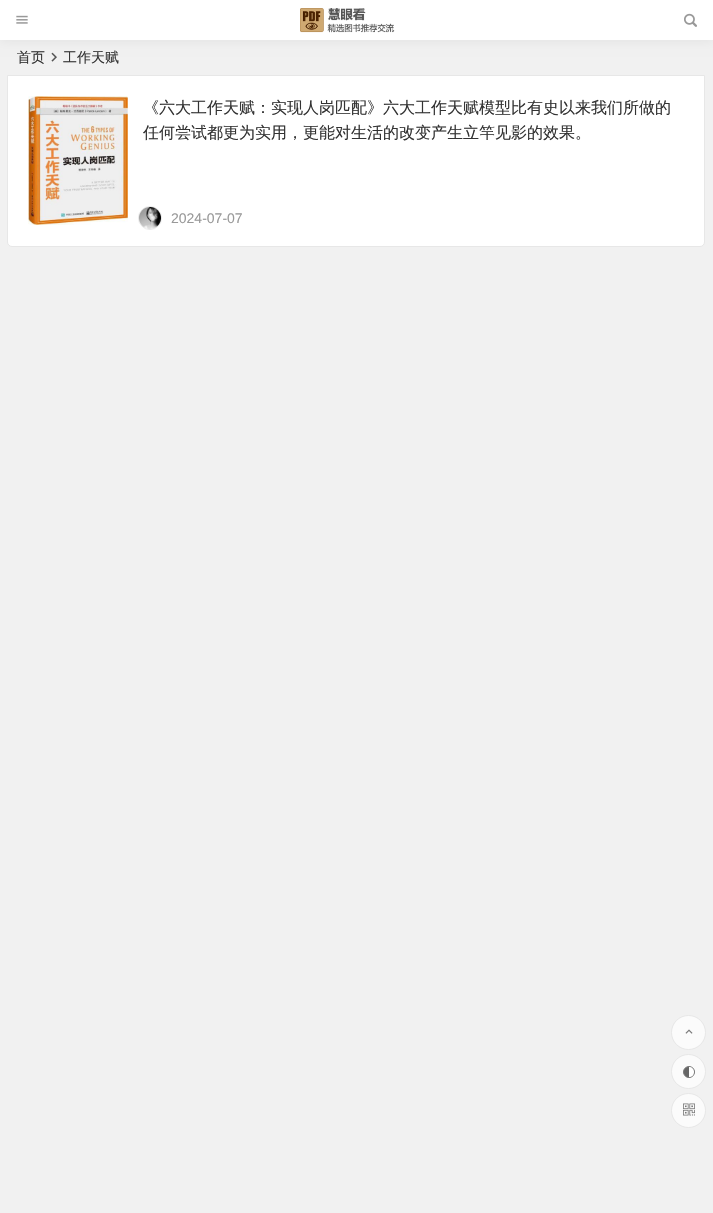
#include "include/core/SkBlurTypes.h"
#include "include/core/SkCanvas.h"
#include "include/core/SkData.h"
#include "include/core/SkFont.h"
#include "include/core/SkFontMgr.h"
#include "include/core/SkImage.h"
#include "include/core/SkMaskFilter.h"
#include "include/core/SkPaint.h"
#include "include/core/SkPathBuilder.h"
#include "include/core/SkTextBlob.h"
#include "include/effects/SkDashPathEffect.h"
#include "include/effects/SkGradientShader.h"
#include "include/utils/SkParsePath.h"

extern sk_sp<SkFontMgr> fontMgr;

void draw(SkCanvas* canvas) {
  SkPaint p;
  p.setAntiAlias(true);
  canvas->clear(SkColorSetRGB(241, 241, 241));
  canvas->drawImageRect(SkImages::DeferredFromEncodedData(SkData::MakeFromFileName("images/4.png")), SkRect::MakeLTRB(51, 52, 57, 62), SkSamplingOptions());
  p.setColor(SkColorSetARGB(13, 0, 0, 0));
  p.setMaskFilter(SkMaskFilter::MakeBlur(kNormal_SkBlurStyle, 5));
  canvas->drawRect(SkRect::MakeLTRB(0, 2, 713, 42), p);
  p.setMaskFilter(nullptr);
  p.setColor(SK_ColorWHITE);
  canvas->drawRect(SkRect::MakeLTRB(0, 0, 713, 40), p);
  canvas->drawImageRect(SkImages::DeferredFromEncodedData(SkData::MakeFromFileName("images/1.png")), SkRect::MakeLTRB(16, 15, 28, 24), SkSamplingOptions());
  canvas->drawImageRect(SkImages::DeferredFromEncodedData(SkData::MakeFromFileName("images/2.png")), SkRect::MakeLTRB(300, 8, 395, 33), SkSamplingOptions());
  canvas->drawImageRect(SkImages::DeferredFromEncodedData(SkData::MakeFromFileName("images/3.png")), SkRect::MakeLTRB(684, 13, 697, 27), SkSamplingOptions());
  canvas->drawPath(SkPathBuilder().moveTo(7.5f, 75.5f).lineTo(704.5f, 75.5f).lineTo(704.5f, 242).cubicTo(704.5f, 244.5f, 702.5f, 246.5f, 700, 246.5f).lineTo(12, 246.5f).cubicTo(9.5f, 246.5f, 7.5f, 244.5f, 7.5f, 242).close().detach(), p);
  p.setStyle(SkPaint::kStroke_Style);
  p.setStrokeWidth(1);
  p.setColor(SkColorSetRGB(231, 231, 231));
  canvas->drawPath(SkPathBuilder().moveTo(7.5f, 75.5f).lineTo(704.5f, 75.5f).lineTo(704.5f, 242).cubicTo(704.5f, 244.5f, 702.5f, 246.5f, 700, 246.5f).lineTo(12, 246.5f).cubicTo(9.5f, 246.5f, 7.5f, 244.5f, 7.5f, 242).close().detach(), p);
  canvas->drawImageRect(SkImages::DeferredFromEncodedData(SkData::MakeFromFileName("images/5.png")), SkRect::MakeLTRB(28, 96, 128, 225), SkSamplingOptions());
  canvas->drawCircle(150, 218, 11.5f, p);
  canvas->drawImageRect(SkImages::DeferredFromEncodedData(SkData::MakeFromFileName("images/6.png")), SkRect::MakeLTRB(139, 207, 161, 229), SkSamplingOptions());
  p.setStyle(SkPaint::kFill_Style);
  p.setColor(SkColorSetRGB(251, 251, 251));
  canvas->drawCircle(688.5f, 1032.5f, 17, p);
  p.setStyle(SkPaint::kStroke_Style);
  p.setColor(SkColorSetRGB(231, 231, 231));
  canvas->drawCircle(688.5f, 1032.5f, 17, p);
  canvas->drawImageRect(SkImages::DeferredFromEncodedData(SkData::MakeFromFileName("images/7.png")), SkRect::MakeLTRB(685, 1029, 693, 1034), SkSamplingOptions());
  p.setStyle(SkPaint::kFill_Style);
  p.setColor(SkColorSetRGB(251, 251, 251));
  canvas->drawCircle(688.5f, 1071.5f, 17, p);
  p.setStyle(SkPaint::kStroke_Style);
  p.setColor(SkColorSetRGB(231, 231, 231));
  canvas->drawCircle(688.5f, 1071.5f, 17, p);
  p.setStyle(SkPaint::kFill_Style);
  p.setColor(SkColorSetRGB(102, 102, 102));
  canvas->drawCircle(689, 1072, 5.5f, p);
  p.setStyle(SkPaint::kStroke_Style);
  p.setColor(SkColorSetRGB(119, 119, 119));
  canvas->drawCircle(689, 1072, 5.5f, p);
  p.setStyle(SkPaint::kFill_Style);
  p.setColor(SK_ColorWHITE);
  canvas->drawPath(SkPathBuilder().moveTo(689, 1067).cubicTo(692, 1067, 694, 1069, 694, 1072).cubicTo(694, 1075, 692, 1077, 689, 1077).close().detach(), p);
  p.setColor(SkColorSetRGB(251, 251, 251));
  canvas->drawCircle(688.5f, 1110.5f, 17, p);
  p.setStyle(SkPaint::kStroke_Style);
  p.setColor(SkColorSetRGB(231, 231, 231));
  canvas->drawCircle(688.5f, 1110.5f, 17, p);
  canvas->drawImageRect(SkImages::DeferredFromEncodedData(SkData::MakeFromFileName("images/8.png")), SkRect::MakeLTRB(683, 1103, 695, 1116), SkSamplingOptions());
  SkFont font1(fontMgr->matchFamilyStyle("WenQuanYi Zen Hei", SkFontStyle(500, SkFontStyle::kNormal_Width, SkFontStyle::kUpright_Slant)), 14);
  font1.setSubpixel(true);
  p.setStyle(SkPaint::kFill_Style);
  p.setColor(SkColorSetRGB(51, 51, 51));
  canvas->drawString("首页", 17, 62, font1, p);
  canvas->drawString("工作天赋", 63, 62, font1, p);
  SkFont font2(fontMgr->matchFamilyStyle("WenQuanYi Zen Hei", SkFontStyle(500, SkFontStyle::kNormal_Width, SkFontStyle::kUpright_Slant)), 16);
  font2.setSubpixel(true);
  canvas->drawString("《六大工作天赋：实现人岗匹配》六大工作天赋模型比有史以来我们所做的", 143, 113, font2, p);
  canvas->drawString("任何尝试都更为实用，更能对生活的改变产生立竿见影的效果。", 143, 138, font2, p);
  SkFont font3(fontMgr->matchFamilyStyle("Liberation Sans", SkFontStyle::Normal()), 14);
  font3.setSubpixel(true);
  p.setColor(SkColorSetRGB(153, 153, 153));
  canvas->drawString("2024-07-07", 171, 223, font3, p);
}
